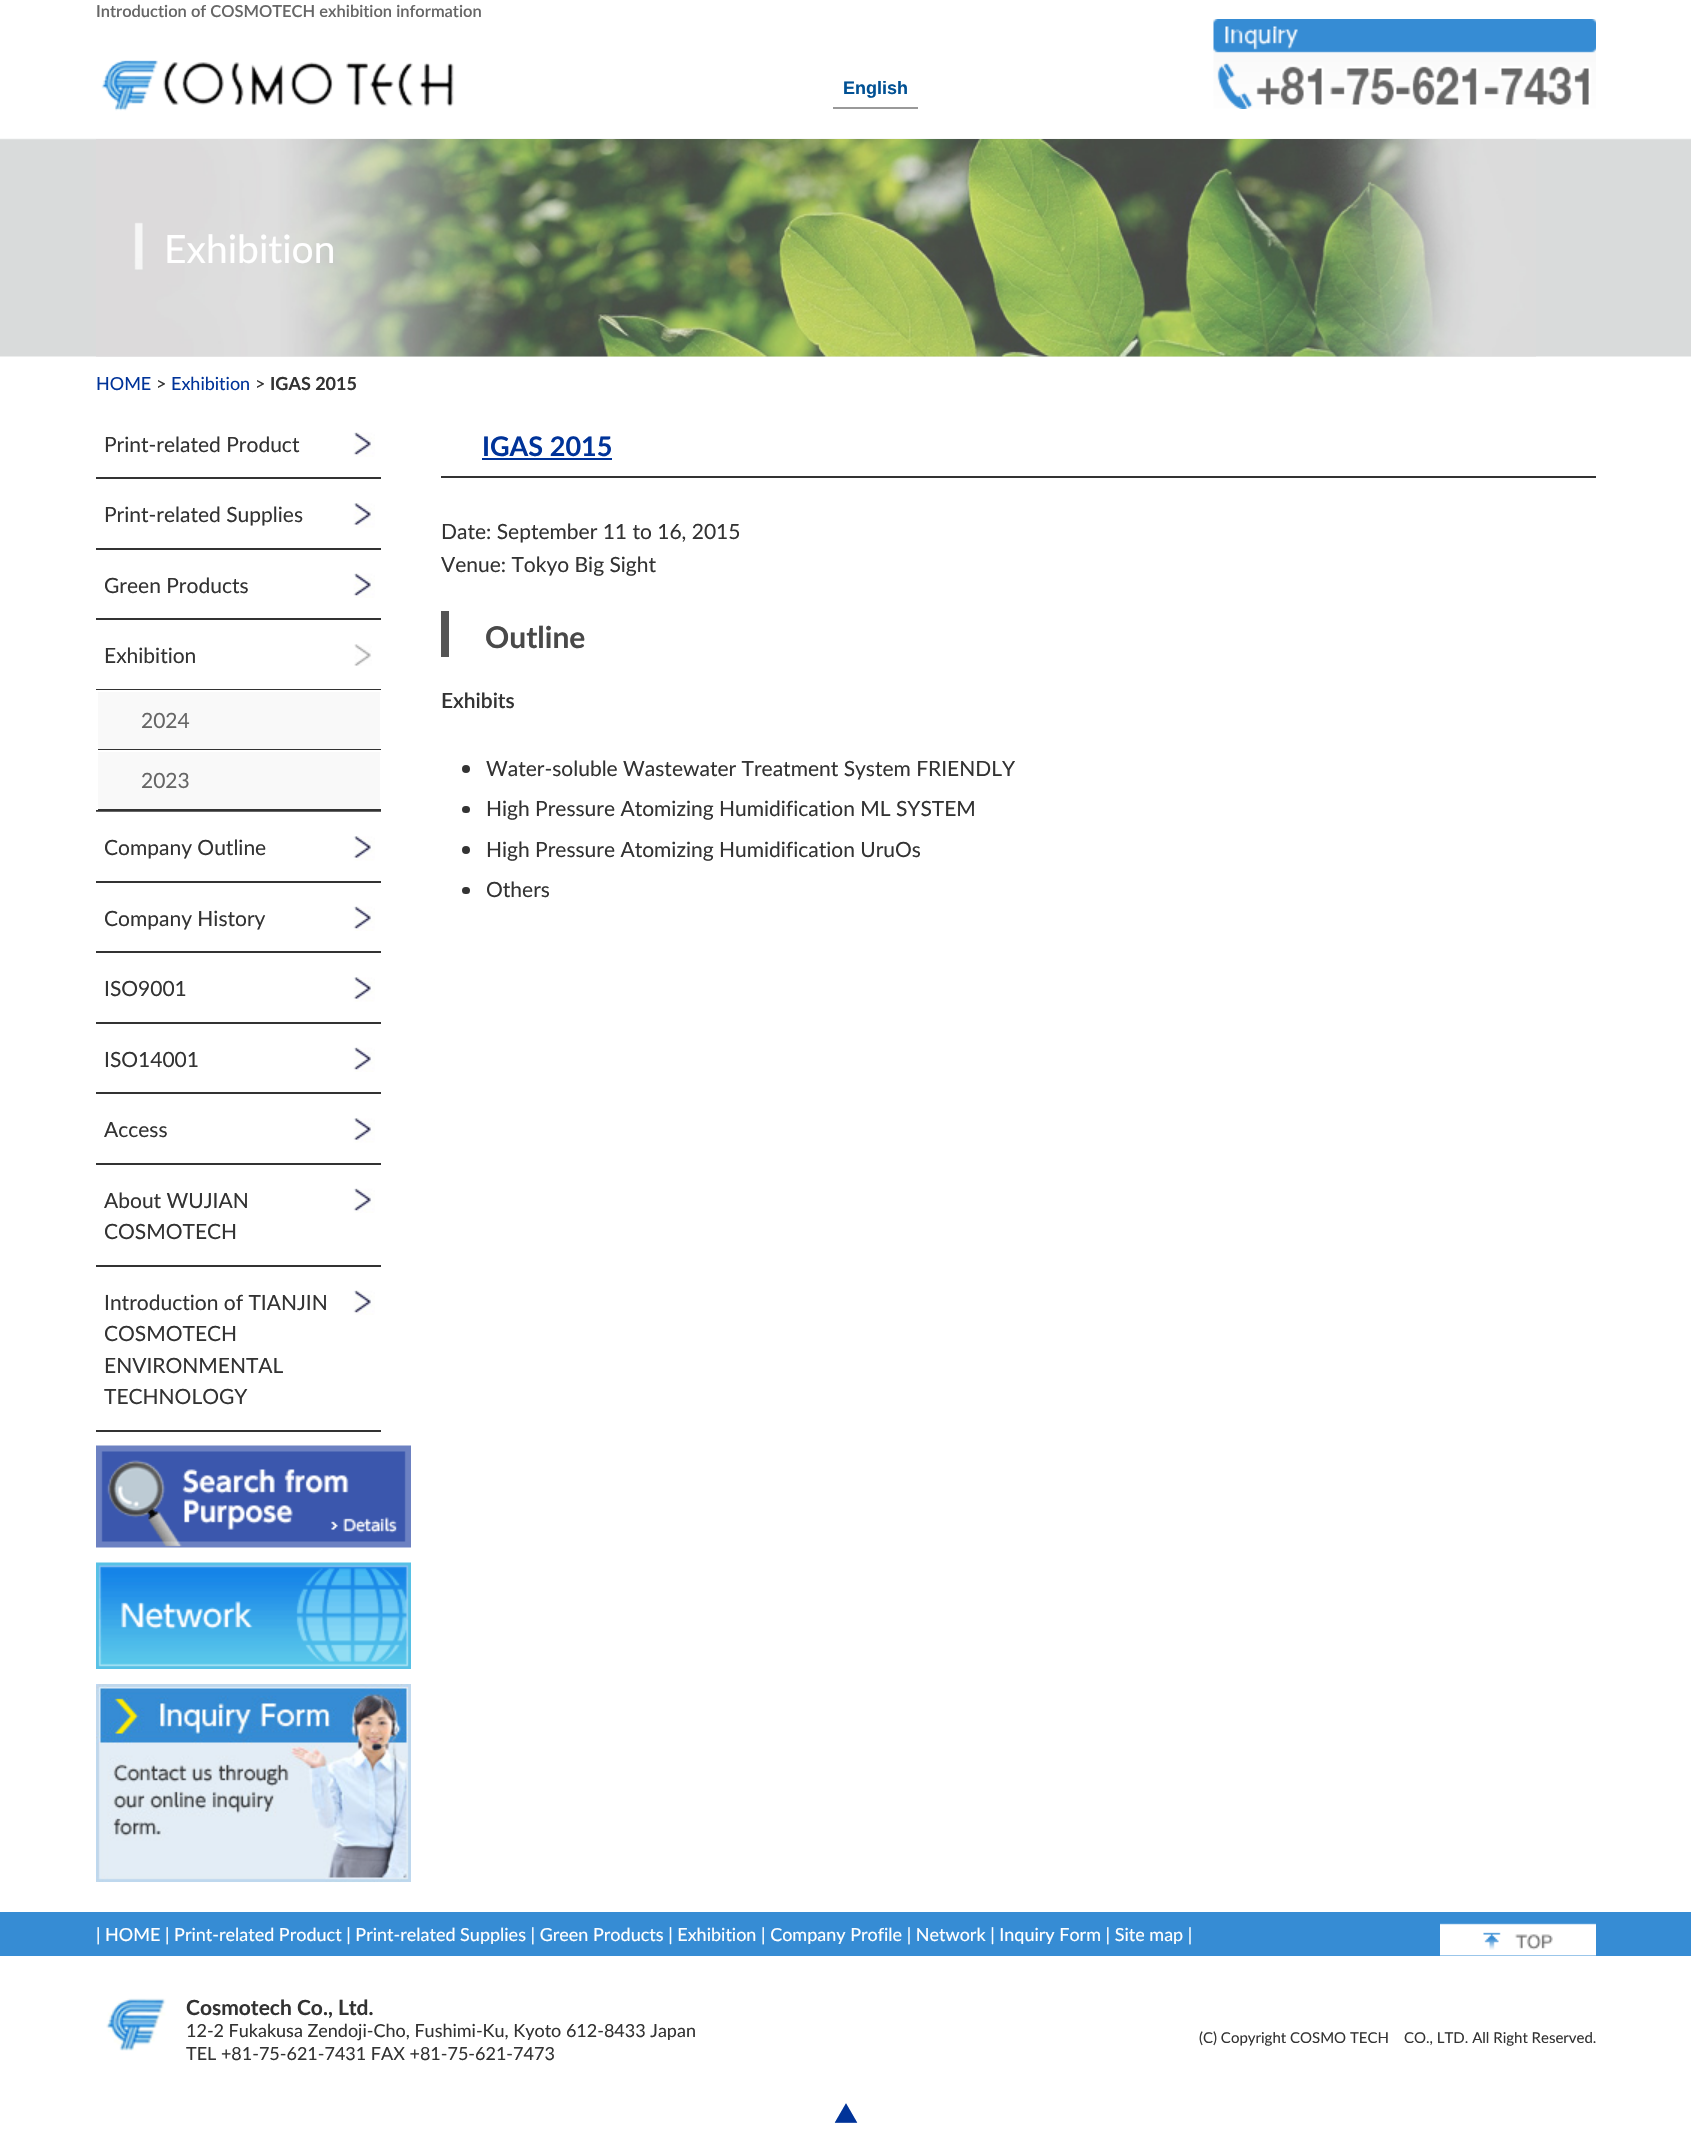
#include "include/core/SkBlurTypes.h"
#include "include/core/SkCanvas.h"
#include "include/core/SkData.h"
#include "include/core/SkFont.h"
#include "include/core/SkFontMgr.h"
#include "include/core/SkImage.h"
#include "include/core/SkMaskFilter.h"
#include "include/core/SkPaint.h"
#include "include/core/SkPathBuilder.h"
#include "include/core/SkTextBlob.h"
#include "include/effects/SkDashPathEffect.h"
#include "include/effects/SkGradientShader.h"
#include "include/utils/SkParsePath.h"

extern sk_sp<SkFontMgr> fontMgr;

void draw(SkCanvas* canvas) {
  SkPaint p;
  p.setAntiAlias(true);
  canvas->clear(SK_ColorWHITE);
  canvas->drawImageRect(SkImages::DeferredFromEncodedData(SkData::MakeFromFileName("images/1.png")), SkRect::MakeLTRB(0, 138, 1691, 357), SkSamplingOptions());
  canvas->drawImageRect(SkImages::DeferredFromEncodedData(SkData::MakeFromFileName("images/2.png")), SkRect::MakeLTRB(101, 60, 454, 111), SkSamplingOptions());
  p.setColor(SkColorSetRGB(153, 153, 153));
  canvas->drawRect(SkRect::MakeLTRB(833, 107, 918, 109), p);
  canvas->drawImageRect(SkImages::DeferredFromEncodedData(SkData::MakeFromFileName("images/3.png")), SkRect::MakeLTRB(1213, 19, 1596, 109), SkSamplingOptions());
  canvas->drawImageRect(SkImages::DeferredFromEncodedData(SkData::MakeFromFileName("images/4.png")), SkRect::MakeLTRB(96, 139, 1536, 357), SkSamplingOptions());
  canvas->drawImageRect(SkImages::DeferredFromEncodedData(SkData::MakeFromFileName("images/5.png")), SkRect::MakeLTRB(353, 432, 375, 457), SkSamplingOptions());
  p.setColor(SkColorSetRGB(51, 51, 51));
  canvas->drawRect(SkRect::MakeLTRB(96, 477, 381, 479), p);
  canvas->drawImageRect(SkImages::DeferredFromEncodedData(SkData::MakeFromFileName("images/6.png")), SkRect::MakeLTRB(353, 503, 375, 528), SkSamplingOptions());
  canvas->drawRect(SkRect::MakeLTRB(96, 548, 381, 550), p);
  canvas->drawImageRect(SkImages::DeferredFromEncodedData(SkData::MakeFromFileName("images/5.png")), SkRect::MakeLTRB(353, 573, 375, 598), SkSamplingOptions());
  canvas->drawRect(SkRect::MakeLTRB(96, 618, 381, 620), p);
  canvas->drawImageRect(SkImages::DeferredFromEncodedData(SkData::MakeFromFileName("images/7.png")), SkRect::MakeLTRB(354, 644, 372, 666), SkSamplingOptions());
  canvas->drawRect(SkRect::MakeLTRB(96, 689, 381, 690), p);
  p.setColor(SkColorSetRGB(102, 102, 102));
  canvas->drawRect(SkRect::MakeLTRB(96, 811, 381, 812), p);
  p.setColor(SkColorSetRGB(249, 249, 249));
  canvas->drawRect(SkRect::MakeLTRB(98, 692, 380, 749), p);
  p.setColor(SkColorSetRGB(51, 51, 51));
  canvas->drawRect(SkRect::MakeLTRB(96, 749, 381, 750), p);
  p.setColor(SK_ColorWHITE);
  canvas->drawRect(SkRect::MakeLTRB(96, 749, 98, 750), p);
  p.setColor(SkColorSetRGB(249, 249, 249));
  canvas->drawRect(SkRect::MakeLTRB(98, 752, 380, 809), p);
  p.setColor(SkColorSetRGB(51, 51, 51));
  canvas->drawRect(SkRect::MakeLTRB(96, 809, 381, 811), p);
  p.setColor(SK_ColorWHITE);
  canvas->drawRect(SkRect::MakeLTRB(96, 809, 98, 810), p);
  canvas->drawImageRect(SkImages::DeferredFromEncodedData(SkData::MakeFromFileName("images/6.png")), SkRect::MakeLTRB(353, 836, 375, 861), SkSamplingOptions());
  p.setColor(SkColorSetRGB(51, 51, 51));
  canvas->drawRect(SkRect::MakeLTRB(96, 881, 381, 883), p);
  canvas->drawImageRect(SkImages::DeferredFromEncodedData(SkData::MakeFromFileName("images/5.png")), SkRect::MakeLTRB(353, 906, 375, 931), SkSamplingOptions());
  canvas->drawRect(SkRect::MakeLTRB(96, 951, 381, 953), p);
  canvas->drawImageRect(SkImages::DeferredFromEncodedData(SkData::MakeFromFileName("images/6.png")), SkRect::MakeLTRB(353, 977, 375, 1002), SkSamplingOptions());
  canvas->drawRect(SkRect::MakeLTRB(96, 1022, 381, 1024), p);
  canvas->drawImageRect(SkImages::DeferredFromEncodedData(SkData::MakeFromFileName("images/5.png")), SkRect::MakeLTRB(353, 1047, 375, 1072), SkSamplingOptions());
  canvas->drawRect(SkRect::MakeLTRB(96, 1092, 381, 1094), p);
  canvas->drawImageRect(SkImages::DeferredFromEncodedData(SkData::MakeFromFileName("images/6.png")), SkRect::MakeLTRB(353, 1118, 375, 1143), SkSamplingOptions());
  canvas->drawRect(SkRect::MakeLTRB(96, 1163, 381, 1165), p);
  canvas->drawImageRect(SkImages::DeferredFromEncodedData(SkData::MakeFromFileName("images/5.png")), SkRect::MakeLTRB(353, 1188, 375, 1213), SkSamplingOptions());
  canvas->drawRect(SkRect::MakeLTRB(96, 1265, 381, 1267), p);
  canvas->drawImageRect(SkImages::DeferredFromEncodedData(SkData::MakeFromFileName("images/5.png")), SkRect::MakeLTRB(353, 1290, 375, 1315), SkSamplingOptions());
  canvas->drawRect(SkRect::MakeLTRB(96, 1430, 381, 1432), p);
  canvas->drawImageRect(SkImages::DeferredFromEncodedData(SkData::MakeFromFileName("images/8.png")), SkRect::MakeLTRB(96, 1445, 411, 1548), SkSamplingOptions());
  canvas->drawImageRect(SkImages::DeferredFromEncodedData(SkData::MakeFromFileName("images/9.png")), SkRect::MakeLTRB(96, 1562, 411, 1669), SkSamplingOptions());
  canvas->drawImageRect(SkImages::DeferredFromEncodedData(SkData::MakeFromFileName("images/10.png")), SkRect::MakeLTRB(96, 1684, 411, 1882), SkSamplingOptions());
  canvas->drawRect(SkRect::MakeLTRB(441, 476, 1596, 478), p);
  p.setColor(SkColorSetRGB(0, 51, 153));
  canvas->drawRect(SkRect::MakeLTRB(482, 458, 612, 460), p);
  p.setColor(SkColorSetRGB(85, 85, 85));
  canvas->drawRect(SkRect::MakeLTRB(441, 611, 449, 657), p);
  p.setColor(SkColorSetRGB(51, 51, 51));
  canvas->drawCircle(466, 769, 4, p);
  canvas->drawRoundRect(SkRect::MakeLTRB(462, 806, 470, 813), 3.5f, 3.5f, p);
  canvas->drawCircle(466, 850, 4, p);
  canvas->drawRoundRect(SkRect::MakeLTRB(462, 887, 470, 894), 3.5f, 3.5f, p);
  p.setColor(SkColorSetRGB(54, 140, 212));
  canvas->drawRect(SkRect::MakeLTRB(0, 1912, 1691, 1956), p);
  canvas->drawImageRect(SkImages::DeferredFromEncodedData(SkData::MakeFromFileName("images/11.png")), SkRect::MakeLTRB(1440, 1923, 1596, 1956), SkSamplingOptions());
  canvas->drawImageRect(SkImages::DeferredFromEncodedData(SkData::MakeFromFileName("images/12.png")), SkRect::MakeLTRB(106, 1998, 166, 2051), SkSamplingOptions());
  SkFont font1(fontMgr->matchFamilyStyle("Lato", SkFontStyle(600, SkFontStyle::kNormal_Width, SkFontStyle::kUpright_Slant)), 16.5f);
  font1.setSubpixel(true);
  p.setColor(SkColorSetRGB(102, 102, 102));
  canvas->drawString("Introduction of COSMOTECH exhibition information", 96, 17, font1, p);
  SkFont font2(fontMgr->matchFamilyStyle("Liberation Sans", SkFontStyle::Bold()), 18);
  font2.setSubpixel(true);
  p.setColor(SkColorSetRGB(1, 81, 148));
  canvas->drawString("English", 843, 94, font2, p);
  SkFont font3(fontMgr->matchFamilyStyle("Lato", SkFontStyle::Normal()), 39);
  font3.setSubpixel(true);
  p.setColor(SK_ColorWHITE);
  canvas->drawString("Exhibition", 164, 263, font3, p);
  SkFont font4(fontMgr->matchFamilyStyle("Lato", SkFontStyle::Normal()), 18);
  font4.setSubpixel(true);
  p.setColor(SkColorSetRGB(0, 51, 153));
  canvas->drawString("HOME", 96, 390, font4, p);
  p.setColor(SkColorSetRGB(51, 51, 51));
  canvas->drawString(">", 156, 390, font4, p);
  p.setColor(SkColorSetRGB(0, 51, 153));
  canvas->drawString("Exhibition", 171, 390, font4, p);
  p.setColor(SkColorSetRGB(51, 51, 51));
  canvas->drawString(">", 255, 390, font4, p);
  SkFont font5(fontMgr->matchFamilyStyle("Lato", SkFontStyle::Bold()), 18);
  font5.setSubpixel(true);
  canvas->drawString("IGAS 2015", 270, 390, font5, p);
  SkFont font6(fontMgr->matchFamilyStyle("Lato", SkFontStyle::Normal()), 21);
  font6.setSubpixel(true);
  canvas->drawString("Print-related Product", 104, 452, font6, p);
  canvas->drawString("Print-related Supplies", 104, 522, font6, p);
  canvas->drawString("Green Products", 104, 593, font6, p);
  canvas->drawString("Exhibition", 104, 663, font6, p);
  p.setColor(SkColorSetRGB(102, 102, 102));
  canvas->drawString("2024", 141, 728, font6, p);
  canvas->drawString("2023", 141, 788, font6, p);
  p.setColor(SkColorSetRGB(51, 51, 51));
  canvas->drawString("Company Outline", 104, 855, font6, p);
  canvas->drawString("Company History", 104, 926, font6, p);
  canvas->drawString("ISO9001", 104, 996, font6, p);
  canvas->drawString("ISO14001", 104, 1067, font6, p);
  canvas->drawString("Access", 104, 1137, font6, p);
  canvas->drawString("About WUJIAN", 104, 1208, font6, p);
  canvas->drawString("COSMOTECH", 104, 1239, font6, p);
  canvas->drawString("Introduction of TIANJIN", 104, 1310, font6, p);
  canvas->drawString("COSMOTECH", 104, 1341, font6, p);
  canvas->drawString("ENVIRONMENTAL", 104, 1373, font6, p);
  canvas->drawString("TECHNOLOGY", 104, 1404, font6, p);
  SkFont font7(fontMgr->matchFamilyStyle("Lato", SkFontStyle::Bold()), 27);
  font7.setSubpixel(true);
  p.setColor(SkColorSetRGB(0, 51, 153));
  canvas->drawString("IGAS 2015", 482, 456, font7, p);
  p.setColor(SkColorSetRGB(51, 51, 51));
  canvas->drawString("Date: September 11 to 16, 2015", 441, 539, font6, p);
  canvas->drawString("Venue: Tokyo Big Sight", 441, 572, font6, p);
  SkFont font8(fontMgr->matchFamilyStyle("Lato", SkFontStyle::Bold()), 30);
  font8.setSubpixel(true);
  p.setColor(SkColorSetRGB(73, 73, 73));
  canvas->drawString("Outline", 485, 648, font8, p);
  SkFont font9(fontMgr->matchFamilyStyle("Lato", SkFontStyle(600, SkFontStyle::kNormal_Width, SkFontStyle::kUpright_Slant)), 21);
  font9.setSubpixel(true);
  p.setColor(SkColorSetRGB(51, 51, 51));
  canvas->drawString("Exhibits", 441, 708, font9, p);
  canvas->drawString("Water-soluble Wastewater Treatment System FRIENDLY", 486, 776, font6, p);
  canvas->drawString("High Pressure Atomizing Humidification ML SYSTEM", 486, 816, font6, p);
  canvas->drawString("High Pressure Atomizing Humidification UruOs", 486, 857, font6, p);
  canvas->drawString("Others", 486, 897, font6, p);
  p.setColor(SK_ColorWHITE);
  canvas->drawString("| HOME | Print-related Product | Print-related Supplies | Green Products | Exhibition | Company Profile | Network | Inquiry Form | Site map |", 96, 1941, font4, p);
  SkFont font10(fontMgr->matchFamilyStyle("Lato", SkFontStyle::Bold()), 21);
  font10.setSubpixel(true);
  p.setColor(SkColorSetRGB(51, 51, 51));
  canvas->drawString("Cosmotech Co., Ltd.", 186, 2015, font10, p);
  canvas->drawString("12-2 Fukakusa Zendoji-Cho, Fushimi-Ku, Kyoto 612-8433 Japan", 186, 2037, font4, p);
  canvas->drawString("TEL +81-75-621-7431 FAX +81-75-621-7473", 186, 2060, font4, p);
  SkFont font11(fontMgr->matchFamilyStyle("Lato", SkFontStyle::Normal()), 15);
  font11.setSubpixel(true);
  canvas->drawString("(C) Copyright COSMO TECH", 1199, 2043, font11, p);
  canvas->drawString("CO., LTD. All Right Reserved.", 1404, 2043, font11, p);
  SkFont font12(fontMgr->matchFamilyStyle("Noto Sans JP", SkFontStyle::Normal()), 24);
  font12.setSubpixel(true);
  p.setColor(SkColorSetRGB(0, 51, 153));
  canvas->drawString("▲", 834, 2123, font12, p);
}
